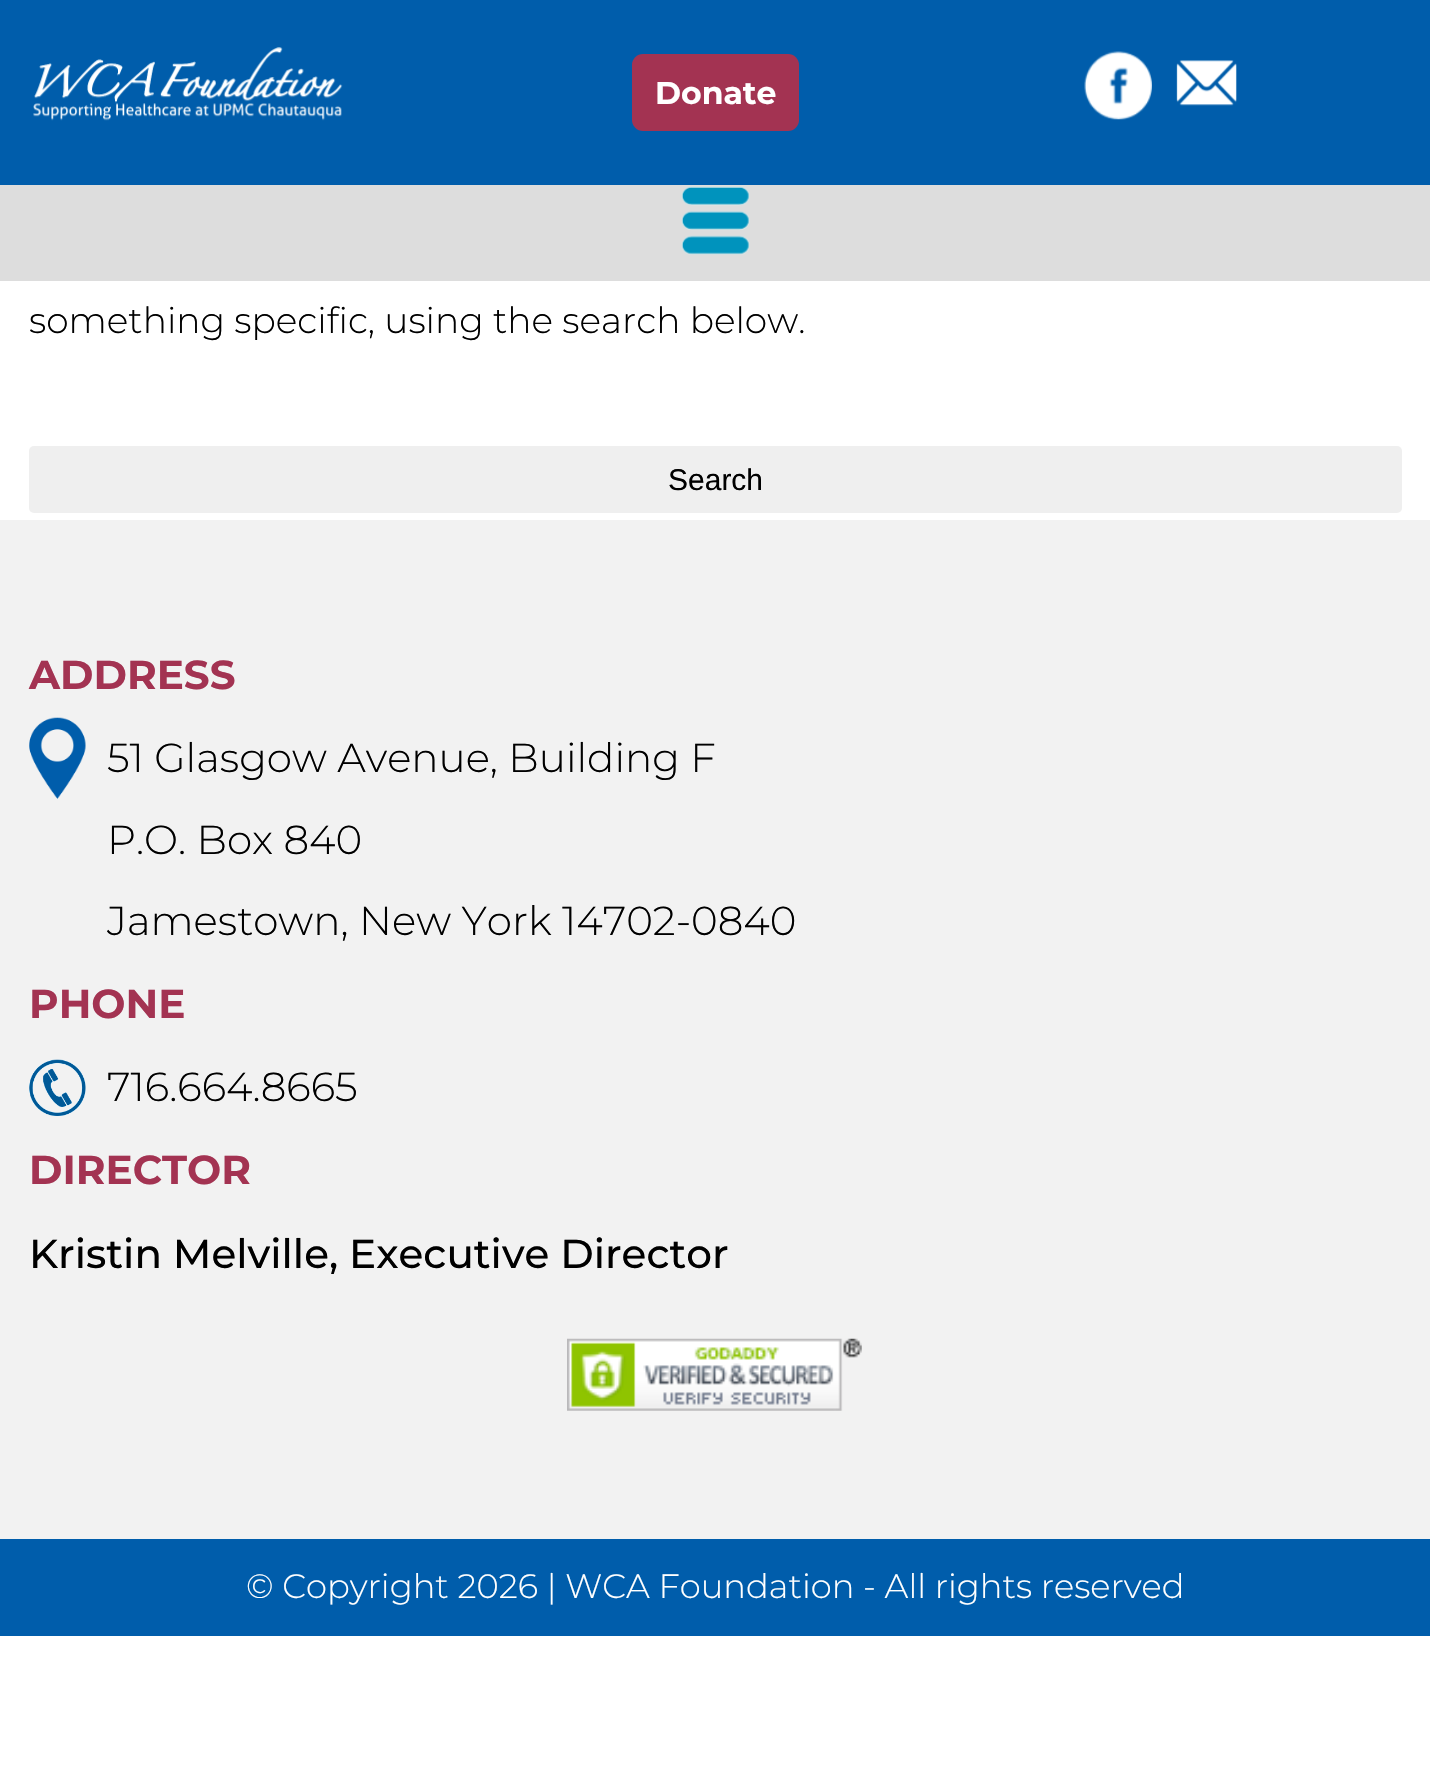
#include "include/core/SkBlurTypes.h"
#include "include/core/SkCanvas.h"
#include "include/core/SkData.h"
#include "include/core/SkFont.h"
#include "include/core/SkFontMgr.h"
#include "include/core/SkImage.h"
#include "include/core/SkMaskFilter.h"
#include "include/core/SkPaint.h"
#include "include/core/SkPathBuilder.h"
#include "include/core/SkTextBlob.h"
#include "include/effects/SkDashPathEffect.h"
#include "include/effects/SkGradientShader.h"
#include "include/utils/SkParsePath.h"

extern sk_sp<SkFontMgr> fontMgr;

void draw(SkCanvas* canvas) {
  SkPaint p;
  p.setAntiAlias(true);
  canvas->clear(SK_ColorWHITE);
  p.setColor(SkColorSetRGB(0, 93, 171));
  canvas->drawRect(SkRect::MakeLTRB(0, 0, 1430, 185), p);
  canvas->drawImageRect(SkImages::DeferredFromEncodedData(SkData::MakeFromFileName("images/1.png")), SkRect::MakeLTRB(33, 47, 343, 121), SkSamplingOptions());
  p.setColor(SkColorSetRGB(163, 51, 82));
  canvas->drawRoundRect(SkRect::MakeLTRB(632, 54, 799, 131), 11, 11, p);
  canvas->drawImageRect(SkImages::DeferredFromEncodedData(SkData::MakeFromFileName("images/2.png")), SkRect::MakeLTRB(1084, 51, 1152, 120), SkSamplingOptions());
  canvas->drawImageRect(SkImages::DeferredFromEncodedData(SkData::MakeFromFileName("images/3.png")), SkRect::MakeLTRB(1176, 60, 1237, 106), SkSamplingOptions());
  p.setColor(SkColorSetRGB(221, 221, 221));
  canvas->drawRect(SkRect::MakeLTRB(0, 185, 1430, 281), p);
  canvas->drawImageRect(SkImages::DeferredFromEncodedData(SkData::MakeFromFileName("images/4.png")), SkRect::MakeLTRB(681, 186, 750, 255), SkSamplingOptions());
  p.setColor(SkColorSetRGB(239, 239, 239));
  canvas->drawRoundRect(SkRect::MakeLTRB(29, 446, 1402, 513), 5, 5, p);
  p.setColor(SkColorSetRGB(242, 242, 242));
  canvas->drawRect(SkRect::MakeLTRB(0, 520, 1430, 1539), p);
  canvas->drawImageRect(SkImages::DeferredFromEncodedData(SkData::MakeFromFileName("images/5.png")), SkRect::MakeLTRB(29, 717, 86, 799), SkSamplingOptions());
  canvas->drawImageRect(SkImages::DeferredFromEncodedData(SkData::MakeFromFileName("images/6.png")), SkRect::MakeLTRB(29, 1059, 86, 1116), SkSamplingOptions());
  canvas->drawImageRect(SkImages::DeferredFromEncodedData(SkData::MakeFromFileName("images/7.png")), SkRect::MakeLTRB(567, 1338, 862, 1411), SkSamplingOptions());
  p.setColor(SkColorSetRGB(0, 93, 171));
  canvas->drawRect(SkRect::MakeLTRB(0, 1539, 1430, 1636), p);
  SkFont font1(fontMgr->matchFamilyStyle("Montserrat", SkFontStyle::Bold()), 31.5f);
  font1.setSubpixel(true);
  p.setColor(SK_ColorWHITE);
  canvas->drawString("Donate", 655, 104, font1, p);
  SkFont font2(fontMgr->matchFamilyStyle("Montserrat", SkFontStyle(300, SkFontStyle::kNormal_Width, SkFontStyle::kUpright_Slant)), 36);
  font2.setSubpixel(true);
  p.setColor(SK_ColorBLACK);
  canvas->drawString("something specific, using the search below.", 29, 333, font2, p);
  SkFont font3(fontMgr->matchFamilyStyle("Liberation Sans", SkFontStyle::Normal()), 30);
  font3.setSubpixel(true);
  canvas->drawString("Search", 668, 490, font3, p);
  SkFont font4(fontMgr->matchFamilyStyle("Montserrat", SkFontStyle::Bold()), 40.5f);
  font4.setSubpixel(true);
  p.setColor(SkColorSetRGB(163, 51, 82));
  canvas->drawString("ADDRESS", 29, 689, font4, p);
  SkFont font5(fontMgr->matchFamilyStyle("Montserrat", SkFontStyle(300, SkFontStyle::kNormal_Width, SkFontStyle::kUpright_Slant)), 40.5f);
  font5.setSubpixel(true);
  p.setColor(SK_ColorBLACK);
  canvas->drawString("51 Glasgow Avenue, Building F", 107, 772, font5, p);
  canvas->drawString("P.O. Box 840", 107, 854, font5, p);
  canvas->drawString("Jamestown, New York 14702-0840", 107, 935, font5, p);
  p.setColor(SkColorSetRGB(163, 51, 82));
  canvas->drawString("PHONE", 29, 1018, font4, p);
  p.setColor(SK_ColorBLACK);
  canvas->drawString("716.664.8665", 107, 1101, font5, p);
  p.setColor(SkColorSetRGB(163, 51, 82));
  canvas->drawString("DIRECTOR", 29, 1184, font4, p);
  SkFont font6(fontMgr->matchFamilyStyle("Montserrat", SkFontStyle(500, SkFontStyle::kNormal_Width, SkFontStyle::kUpright_Slant)), 40.5f);
  font6.setSubpixel(true);
  p.setColor(SK_ColorBLACK);
  canvas->drawString("Kristin Melville, Executive Director", 29, 1268, font6, p);
  SkFont font7(fontMgr->matchFamilyStyle("Montserrat", SkFontStyle(300, SkFontStyle::kNormal_Width, SkFontStyle::kUpright_Slant)), 33.75f);
  font7.setSubpixel(true);
  p.setColor(SK_ColorWHITE);
  canvas->drawString("© Copyright 2026 | WCA Foundation - All rights reserved", 246, 1598, font7, p);
}
